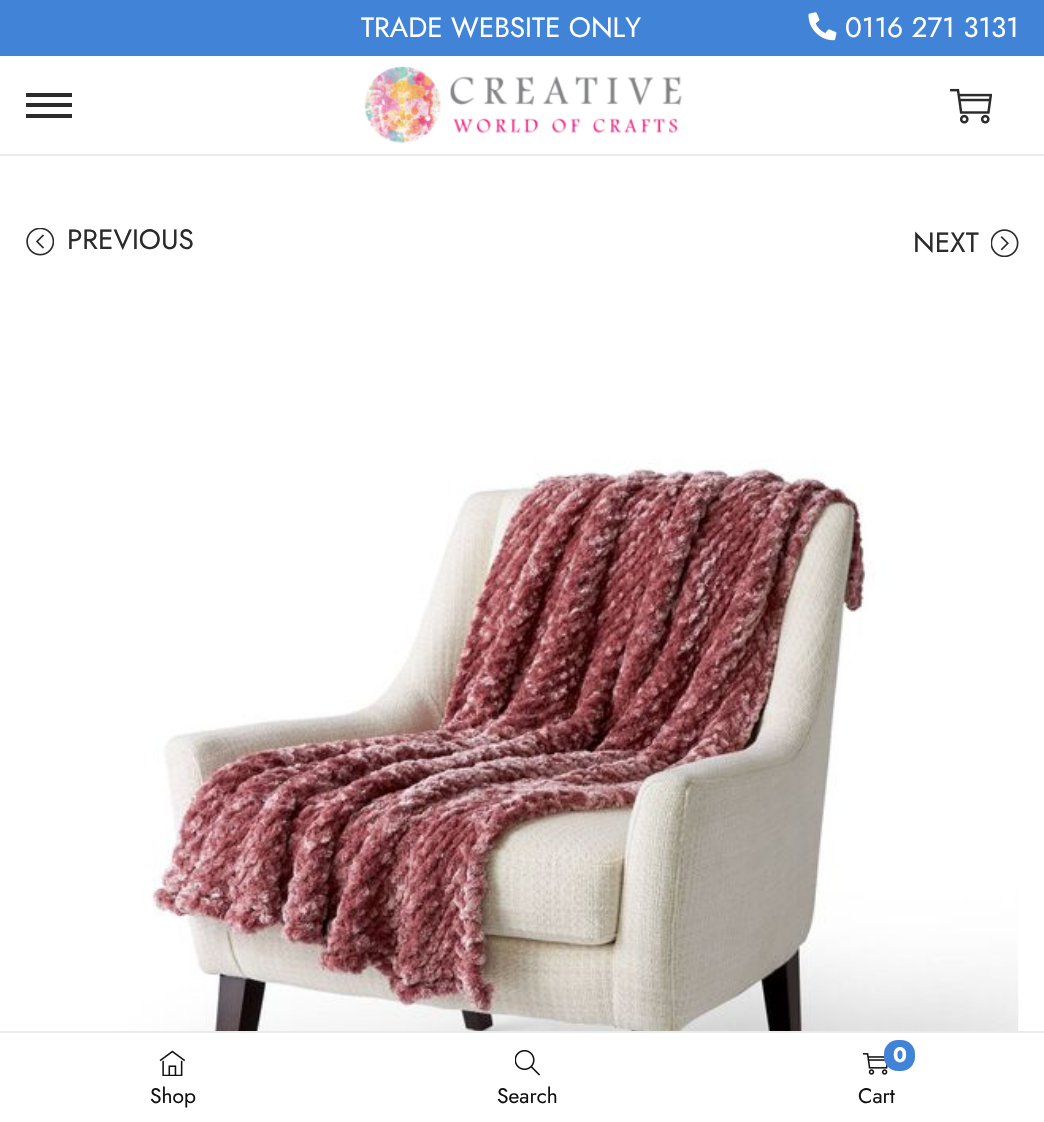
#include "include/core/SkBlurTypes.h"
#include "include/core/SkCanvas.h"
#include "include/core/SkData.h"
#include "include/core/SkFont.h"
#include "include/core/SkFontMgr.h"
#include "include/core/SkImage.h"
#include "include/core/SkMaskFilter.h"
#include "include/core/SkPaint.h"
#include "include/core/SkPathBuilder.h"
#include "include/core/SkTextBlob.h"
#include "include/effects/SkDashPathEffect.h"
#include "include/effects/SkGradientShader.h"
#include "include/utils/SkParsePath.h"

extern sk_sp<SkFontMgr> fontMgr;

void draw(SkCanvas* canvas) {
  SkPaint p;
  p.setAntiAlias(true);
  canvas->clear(SK_ColorWHITE);
  p.setColor(SkColorSetRGB(65, 131, 215));
  canvas->drawRect(SkRect::MakeLTRB(0, 0, 1044, 56), p);
  canvas->drawImageRect(SkImages::DeferredFromEncodedData(SkData::MakeFromFileName("images/1.png")), SkRect::MakeLTRB(808, 12, 837, 41), SkSamplingOptions());
  p.setColor(SkColorSetRGB(234, 234, 234));
  canvas->drawRect(SkRect::MakeLTRB(0, 154, 1044, 156), p);
  p.setColor(SkColorSetRGB(43, 43, 43));
  canvas->drawRect(SkRect::MakeLTRB(26, 103, 72, 107), p);
  canvas->drawRect(SkRect::MakeLTRB(26, 93, 72, 97), p);
  canvas->drawRect(SkRect::MakeLTRB(26, 114, 72, 118), p);
  canvas->drawImageRect(SkImages::DeferredFromEncodedData(SkData::MakeFromFileName("images/2.png")), SkRect::MakeLTRB(364, 66, 682, 143), SkSamplingOptions());
  canvas->drawImageRect(SkImages::DeferredFromEncodedData(SkData::MakeFromFileName("images/3.png")), SkRect::MakeLTRB(950, 88, 992, 124), SkSamplingOptions());
  canvas->drawImageRect(SkImages::DeferredFromEncodedData(SkData::MakeFromFileName("images/4.png")), SkRect::MakeLTRB(26, 228, 54, 256), SkSamplingOptions());
  canvas->drawImageRect(SkImages::DeferredFromEncodedData(SkData::MakeFromFileName("images/5.png")), SkRect::MakeLTRB(991, 229, 1019, 257), SkSamplingOptions());
  canvas->drawImageRect(SkImages::DeferredFromEncodedData(SkData::MakeFromFileName("images/6.png")), SkRect::MakeLTRB(106, 459, 1019, 1031), SkSamplingOptions());
  p.setColor(SkColorSetRGB(234, 234, 234));
  canvas->drawRect(SkRect::MakeLTRB(0, 1031, 1044, 1033), p);
  canvas->drawImageRect(SkImages::DeferredFromEncodedData(SkData::MakeFromFileName("images/7.png")), SkRect::MakeLTRB(159, 1050, 186, 1076), SkSamplingOptions());
  canvas->drawImageRect(SkImages::DeferredFromEncodedData(SkData::MakeFromFileName("images/8.png")), SkRect::MakeLTRB(515, 1050, 540, 1076), SkSamplingOptions());
  canvas->drawImageRect(SkImages::DeferredFromEncodedData(SkData::MakeFromFileName("images/9.png")), SkRect::MakeLTRB(863, 1053, 888, 1075), SkSamplingOptions());
  p.setColor(SkColorSetRGB(65, 131, 215));
  canvas->drawRoundRect(SkRect::MakeLTRB(884, 1040, 915, 1071), 14, 14, p);
  SkFont font1(fontMgr->matchFamilyStyle("Jost", SkFontStyle::Normal()), 28);
  font1.setSubpixel(true);
  p.setColor(SK_ColorWHITE);
  canvas->drawString("TRADE WEBSITE ONLY", 361, 37, font1, p);
  canvas->drawString("0116 271 3131", 845, 37, font1, p);
  p.setColor(SkColorSetRGB(43, 43, 43));
  canvas->drawString("PREVIOUS", 67, 249, font1, p);
  canvas->drawString("NEXT", 913, 252, font1, p);
  SkFont font2(fontMgr->matchFamilyStyle("Jost", SkFontStyle::Normal()), 21);
  font2.setSubpixel(true);
  p.setColor(SkColorSetRGB(17, 17, 17));
  canvas->drawString("Shop", 150, 1103, font2, p);
  canvas->drawString("Search", 497, 1103, font2, p);
  SkFont font3(fontMgr->matchFamilyStyle("Jost", SkFontStyle::Bold()), 21);
  font3.setSubpixel(true);
  p.setColor(SK_ColorWHITE);
  canvas->drawString("0", 893, 1062, font3, p);
  p.setColor(SkColorSetRGB(17, 17, 17));
  canvas->drawString("Cart", 858, 1103, font2, p);
}
